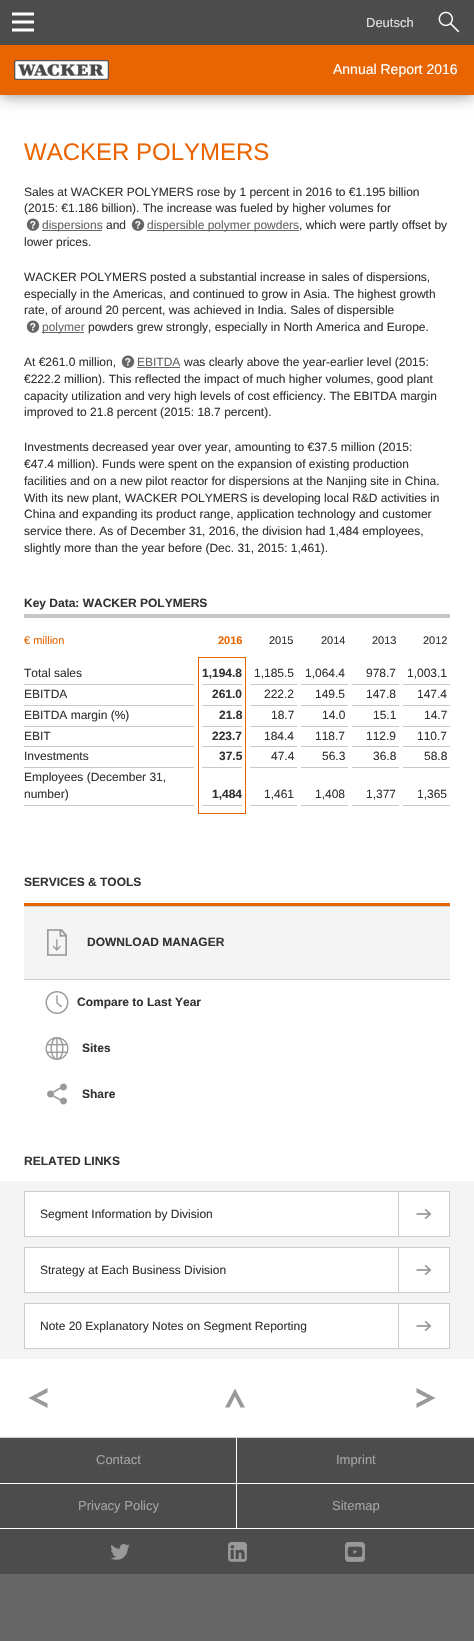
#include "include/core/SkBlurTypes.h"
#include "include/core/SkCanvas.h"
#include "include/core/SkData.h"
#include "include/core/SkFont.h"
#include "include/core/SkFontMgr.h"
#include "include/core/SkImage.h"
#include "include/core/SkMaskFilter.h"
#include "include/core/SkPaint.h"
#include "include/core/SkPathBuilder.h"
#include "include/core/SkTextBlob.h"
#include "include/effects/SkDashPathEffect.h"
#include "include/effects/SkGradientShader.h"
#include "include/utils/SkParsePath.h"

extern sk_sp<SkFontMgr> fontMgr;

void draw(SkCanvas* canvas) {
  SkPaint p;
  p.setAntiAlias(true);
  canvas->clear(SkColorSetRGB(102, 102, 102));
  p.setColor(SK_ColorWHITE);
  canvas->drawRect(SkRect::MakeLTRB(0, 95, 474, 1437), p);
  p.setColor(SkColorSetRGB(136, 136, 136));
  p.setMaskFilter(SkMaskFilter::MakeBlur(kNormal_SkBlurStyle, 7.5f));
  canvas->drawRect(SkRect::MakeLTRB(0, 45, 474, 95), p);
  p.setMaskFilter(nullptr);
  p.setColor(SkColorSetRGB(76, 76, 76));
  canvas->drawRect(SkRect::MakeLTRB(0, 0, 474, 45), p);
  canvas->drawImageRect(SkImages::DeferredFromEncodedData(SkData::MakeFromFileName("images/1.png")), SkRect::MakeLTRB(12, 12, 34, 32), SkSamplingOptions());
  canvas->drawImageRect(SkImages::DeferredFromEncodedData(SkData::MakeFromFileName("images/2.png")), SkRect::MakeLTRB(438, 11, 460, 33), SkSamplingOptions());
  p.setColor(SkColorSetRGB(233, 101, 1));
  canvas->drawRect(SkRect::MakeLTRB(0, 45, 474, 95), p);
  canvas->drawImageRect(SkImages::DeferredFromEncodedData(SkData::MakeFromFileName("images/3.png")), SkRect::MakeLTRB(14, 60, 109, 80), SkSamplingOptions());
  canvas->drawImageRect(SkImages::DeferredFromEncodedData(SkData::MakeFromFileName("images/4.png")), SkRect::MakeLTRB(26, 218, 40, 231), SkSamplingOptions());
  p.setColor(SkColorSetRGB(102, 102, 102));
  canvas->drawRect(SkRect::MakeLTRB(42, 230, 102, 231), p);
  canvas->drawImageRect(SkImages::DeferredFromEncodedData(SkData::MakeFromFileName("images/4.png")), SkRect::MakeLTRB(131, 218, 145, 231), SkSamplingOptions());
  canvas->drawRect(SkRect::MakeLTRB(147, 230, 299, 231), p);
  canvas->drawImageRect(SkImages::DeferredFromEncodedData(SkData::MakeFromFileName("images/4.png")), SkRect::MakeLTRB(26, 320, 40, 333), SkSamplingOptions());
  canvas->drawRect(SkRect::MakeLTRB(42, 332, 84, 333), p);
  canvas->drawImageRect(SkImages::DeferredFromEncodedData(SkData::MakeFromFileName("images/4.png")), SkRect::MakeLTRB(121, 355, 135, 368), SkSamplingOptions());
  canvas->drawRect(SkRect::MakeLTRB(137, 367, 180, 368), p);
  p.setColor(SkColorSetRGB(200, 200, 200));
  canvas->drawRect(SkRect::MakeLTRB(24, 614, 450, 618), p);
  p.setColor(SkColorSetRGB(233, 101, 1));
  canvas->drawRect(SkRect::MakeLTRB(198, 657, 246, 658), p);
  canvas->drawRect(SkRect::MakeLTRB(245, 657, 246, 814), p);
  canvas->drawRect(SkRect::MakeLTRB(198, 657, 199, 806), p);
  p.setColor(SkColorSetRGB(200, 200, 200));
  canvas->drawRect(SkRect::MakeLTRB(24, 684, 194, 685), p);
  canvas->drawRect(SkRect::MakeLTRB(202, 684, 242, 685), p);
  canvas->drawRect(SkRect::MakeLTRB(250, 684, 297, 685), p);
  canvas->drawRect(SkRect::MakeLTRB(301, 684, 348, 685), p);
  canvas->drawRect(SkRect::MakeLTRB(352, 684, 399, 685), p);
  canvas->drawRect(SkRect::MakeLTRB(403, 684, 450, 685), p);
  canvas->drawRect(SkRect::MakeLTRB(24, 705, 194, 706), p);
  canvas->drawRect(SkRect::MakeLTRB(202, 705, 242, 706), p);
  canvas->drawRect(SkRect::MakeLTRB(250, 705, 297, 706), p);
  canvas->drawRect(SkRect::MakeLTRB(301, 705, 348, 706), p);
  canvas->drawRect(SkRect::MakeLTRB(352, 705, 399, 706), p);
  canvas->drawRect(SkRect::MakeLTRB(403, 705, 450, 706), p);
  canvas->drawRect(SkRect::MakeLTRB(24, 726, 194, 727), p);
  canvas->drawRect(SkRect::MakeLTRB(202, 726, 242, 727), p);
  canvas->drawRect(SkRect::MakeLTRB(250, 726, 297, 727), p);
  canvas->drawRect(SkRect::MakeLTRB(301, 726, 348, 727), p);
  canvas->drawRect(SkRect::MakeLTRB(352, 726, 399, 727), p);
  canvas->drawRect(SkRect::MakeLTRB(403, 726, 450, 727), p);
  canvas->drawRect(SkRect::MakeLTRB(24, 746, 194, 747), p);
  canvas->drawRect(SkRect::MakeLTRB(202, 746, 242, 747), p);
  canvas->drawRect(SkRect::MakeLTRB(250, 746, 297, 747), p);
  canvas->drawRect(SkRect::MakeLTRB(301, 746, 348, 747), p);
  canvas->drawRect(SkRect::MakeLTRB(352, 746, 399, 747), p);
  canvas->drawRect(SkRect::MakeLTRB(403, 746, 450, 747), p);
  canvas->drawRect(SkRect::MakeLTRB(24, 767, 194, 768), p);
  canvas->drawRect(SkRect::MakeLTRB(202, 767, 242, 768), p);
  canvas->drawRect(SkRect::MakeLTRB(250, 767, 297, 768), p);
  canvas->drawRect(SkRect::MakeLTRB(301, 767, 348, 768), p);
  canvas->drawRect(SkRect::MakeLTRB(352, 767, 399, 768), p);
  canvas->drawRect(SkRect::MakeLTRB(403, 767, 450, 768), p);
  canvas->drawRect(SkRect::MakeLTRB(24, 805, 194, 806), p);
  canvas->drawRect(SkRect::MakeLTRB(202, 805, 242, 806), p);
  canvas->drawRect(SkRect::MakeLTRB(250, 805, 297, 806), p);
  canvas->drawRect(SkRect::MakeLTRB(301, 805, 348, 806), p);
  canvas->drawRect(SkRect::MakeLTRB(352, 805, 399, 806), p);
  canvas->drawRect(SkRect::MakeLTRB(403, 805, 450, 806), p);
  p.setColor(SkColorSetRGB(233, 101, 1));
  canvas->drawRect(SkRect::MakeLTRB(198, 813, 246, 814), p);
  canvas->drawRect(SkRect::MakeLTRB(198, 806, 199, 814), p);
  canvas->drawRect(SkRect::MakeLTRB(24, 903, 450, 906), p);
  p.setColor(SkColorSetRGB(244, 244, 244));
  canvas->drawRect(SkRect::MakeLTRB(24, 907, 450, 979), p);
  p.setColor(SkColorSetRGB(204, 204, 204));
  canvas->drawRect(SkRect::MakeLTRB(24, 906, 450, 907), p);
  canvas->drawRect(SkRect::MakeLTRB(24, 979, 450, 980), p);
  canvas->drawImageRect(SkImages::DeferredFromEncodedData(SkData::MakeFromFileName("images/5.png")), SkRect::MakeLTRB(47, 929, 67, 956), SkSamplingOptions());
  canvas->drawImageRect(SkImages::DeferredFromEncodedData(SkData::MakeFromFileName("images/6.png")), SkRect::MakeLTRB(45, 991, 69, 1014), SkSamplingOptions());
  canvas->drawImageRect(SkImages::DeferredFromEncodedData(SkData::MakeFromFileName("images/7.png")), SkRect::MakeLTRB(45, 1037, 69, 1060), SkSamplingOptions());
  canvas->drawImageRect(SkImages::DeferredFromEncodedData(SkData::MakeFromFileName("images/8.png")), SkRect::MakeLTRB(47, 1083, 67, 1105), SkSamplingOptions());
  p.setColor(SkColorSetRGB(244, 244, 244));
  canvas->drawRect(SkRect::MakeLTRB(0, 1181, 474, 1359), p);
  p.setColor(SK_ColorWHITE);
  canvas->drawRect(SkRect::MakeLTRB(24.5f, 1191.5f, 449.5f, 1236.5f), p);
  p.setStyle(SkPaint::kStroke_Style);
  p.setStrokeWidth(1);
  p.setColor(SkColorSetRGB(204, 204, 204));
  canvas->drawRect(SkRect::MakeLTRB(24.5f, 1191.5f, 449.5f, 1236.5f), p);
  p.setStyle(SkPaint::kFill_Style);
  canvas->drawRect(SkRect::MakeLTRB(398, 1192, 399, 1236), p);
  canvas->drawImageRect(SkImages::DeferredFromEncodedData(SkData::MakeFromFileName("images/9.png")), SkRect::MakeLTRB(416, 1208, 432, 1220), SkSamplingOptions());
  p.setColor(SK_ColorWHITE);
  canvas->drawRect(SkRect::MakeLTRB(24.5f, 1247.5f, 449.5f, 1292.5f), p);
  p.setStyle(SkPaint::kStroke_Style);
  p.setColor(SkColorSetRGB(204, 204, 204));
  canvas->drawRect(SkRect::MakeLTRB(24.5f, 1247.5f, 449.5f, 1292.5f), p);
  p.setStyle(SkPaint::kFill_Style);
  canvas->drawRect(SkRect::MakeLTRB(398, 1248, 399, 1292), p);
  canvas->drawImageRect(SkImages::DeferredFromEncodedData(SkData::MakeFromFileName("images/9.png")), SkRect::MakeLTRB(416, 1264, 432, 1276), SkSamplingOptions());
  p.setColor(SK_ColorWHITE);
  canvas->drawRect(SkRect::MakeLTRB(24.5f, 1303.5f, 449.5f, 1348.5f), p);
  p.setStyle(SkPaint::kStroke_Style);
  p.setColor(SkColorSetRGB(204, 204, 204));
  canvas->drawRect(SkRect::MakeLTRB(24.5f, 1303.5f, 449.5f, 1348.5f), p);
  p.setStyle(SkPaint::kFill_Style);
  canvas->drawRect(SkRect::MakeLTRB(398, 1304, 399, 1348), p);
  canvas->drawImageRect(SkImages::DeferredFromEncodedData(SkData::MakeFromFileName("images/9.png")), SkRect::MakeLTRB(416, 1320, 432, 1332), SkSamplingOptions());
  p.setColor(SkColorSetRGB(153, 153, 153));
  canvas->drawPath(SkPathBuilder().moveTo(47.5f, 1392.5f).lineTo(36.5f, 1398).lineTo(47.5f, 1403.5f).lineTo(47.5f, 1408).lineTo(28.5f, 1398).lineTo(47.5f, 1388).close().detach(), p);
  canvas->drawPath(SkPathBuilder().moveTo(240.5f, 1407.5f).lineTo(235, 1396.5f).lineTo(229.5f, 1407.5f).lineTo(225, 1407.5f).lineTo(235, 1388.5f).lineTo(245, 1407.5f).close().detach(), p);
  canvas->drawPath(SkPathBuilder().moveTo(416.5f, 1403.5f).lineTo(427.5f, 1398).lineTo(416.5f, 1392.5f).lineTo(416.5f, 1388).lineTo(435.5f, 1398).lineTo(416.5f, 1408).close().detach(), p);
  p.setColor(SkColorSetRGB(206, 206, 206));
  canvas->drawRect(SkRect::MakeLTRB(0, 1437, 474, 1438), p);
  p.setColor(SkColorSetRGB(76, 76, 76));
  canvas->drawRect(SkRect::MakeLTRB(0, 1438, 474, 1574), p);
  p.setColor(SK_ColorWHITE);
  canvas->drawRect(SkRect::MakeLTRB(236, 1438, 237, 1529), p);
  canvas->drawRect(SkRect::MakeLTRB(0, 1483, 474, 1484), p);
  canvas->drawRect(SkRect::MakeLTRB(0, 1528, 474, 1529), p);
  canvas->drawImageRect(SkImages::DeferredFromEncodedData(SkData::MakeFromFileName("images/10.png")), SkRect::MakeLTRB(110, 1544, 130, 1560), SkSamplingOptions());
  canvas->drawImageRect(SkImages::DeferredFromEncodedData(SkData::MakeFromFileName("images/11.png")), SkRect::MakeLTRB(228, 1542, 247, 1562), SkSamplingOptions());
  canvas->drawImageRect(SkImages::DeferredFromEncodedData(SkData::MakeFromFileName("images/12.png")), SkRect::MakeLTRB(345, 1542, 365, 1562), SkSamplingOptions());
  SkFont font1(fontMgr->matchFamilyStyle("Liberation Sans", SkFontStyle::Normal()), 13);
  font1.setSubpixel(true);
  p.setColor(SkColorSetRGB(224, 224, 224));
  canvas->drawString("Deutsch", 366, 27, font1, p);
  SkFont font2(fontMgr->matchFamilyStyle("Liberation Sans", SkFontStyle::Normal()), 14);
  font2.setSubpixel(true);
  p.setColor(SK_ColorWHITE);
  canvas->drawString("Annual Report 2016", 333, 74, font2, p);
  SkFont font3(fontMgr->matchFamilyStyle("Liberation Sans", SkFontStyle::Normal()), 24);
  font3.setSubpixel(true);
  p.setColor(SkColorSetRGB(233, 101, 1));
  canvas->drawString("WACKER POLYMERS", 24, 160, font3, p);
  SkFont font4(fontMgr->matchFamilyStyle("Liberation Sans", SkFontStyle::Normal()), 12);
  font4.setSubpixel(true);
  p.setColor(SkColorSetRGB(51, 51, 51));
  canvas->drawString("Sales at WACKER POLYMERS rose by 1 percent in 2016 to €1.195 billion", 24, 196, font4, p);
  canvas->drawString("(2015: €1.186 billion). The increase was fueled by higher volumes for", 24, 212, font4, p);
  p.setColor(SkColorSetRGB(102, 102, 102));
  canvas->drawString("dispersions", 42, 229, font4, p);
  p.setColor(SkColorSetRGB(51, 51, 51));
  canvas->drawString("and", 106, 229, font4, p);
  p.setColor(SkColorSetRGB(102, 102, 102));
  canvas->drawString("dispersible polymer powders", 147, 229, font4, p);
  p.setColor(SkColorSetRGB(51, 51, 51));
  canvas->drawString(", which were partly offset by", 299, 229, font4, p);
  canvas->drawString("lower prices.", 24, 246, font4, p);
  canvas->drawString("WACKER POLYMERS posted a substantial increase in sales of dispersions,", 24, 281, font4, p);
  canvas->drawString("especially in the Americas, and continued to grow in Asia. The highest growth", 24, 298, font4, p);
  canvas->drawString("rate, of around 20 percent, was achieved in India. Sales of dispersible", 24, 314, font4, p);
  p.setColor(SkColorSetRGB(102, 102, 102));
  canvas->drawString("polymer", 42, 331, font4, p);
  p.setColor(SkColorSetRGB(51, 51, 51));
  canvas->drawString("powders grew strongly, especially in North America and Europe.", 88, 331, font4, p);
  canvas->drawString("At €261.0 million,", 24, 366, font4, p);
  p.setColor(SkColorSetRGB(102, 102, 102));
  canvas->drawString("EBITDA", 137, 366, font4, p);
  p.setColor(SkColorSetRGB(51, 51, 51));
  canvas->drawString("was clearly above the year-earlier level (2015:", 184, 366, font4, p);
  canvas->drawString("€222.2 million). This reflected the impact of much higher volumes, good plant", 24, 383, font4, p);
  canvas->drawString("capacity utilization and very high levels of cost efficiency. The EBITDA margin", 24, 400, font4, p);
  canvas->drawString("improved to 21.8 percent (2015: 18.7 percent).", 24, 416, font4, p);
  canvas->drawString("Investments decreased year over year, amounting to €37.5 million (2015:", 24, 451, font4, p);
  canvas->drawString("€47.4 million). Funds were spent on the expansion of existing production", 24, 468, font4, p);
  canvas->drawString("facilities and on a new pilot reactor for dispersions at the Nanjing site in China.", 24, 485, font4, p);
  canvas->drawString("With its new plant, WACKER POLYMERS is developing local R&D activities in", 24, 502, font4, p);
  canvas->drawString("China and expanding its product range, application technology and customer", 24, 518, font4, p);
  canvas->drawString("service there. As of December 31, 2016, the division had 1,484 employees,", 24, 535, font4, p);
  canvas->drawString("slightly more than the year before (Dec. 31, 2015: 1,461).", 24, 552, font4, p);
  SkFont font5(fontMgr->matchFamilyStyle("Liberation Sans", SkFontStyle::Bold()), 12);
  font5.setSubpixel(true);
  canvas->drawString("Key Data: WACKER POLYMERS", 24, 607, font5, p);
  SkFont font6(fontMgr->matchFamilyStyle("Liberation Sans", SkFontStyle::Normal()), 11);
  font6.setSubpixel(true);
  p.setColor(SkColorSetRGB(233, 101, 1));
  canvas->drawString("€ million", 24, 644, font6, p);
  SkFont font7(fontMgr->matchFamilyStyle("Liberation Sans", SkFontStyle::Bold()), 11);
  font7.setSubpixel(true);
  canvas->drawString("2016", 218, 644, font7, p);
  p.setColor(SkColorSetRGB(51, 51, 51));
  canvas->drawString("2015", 269, 644, font6, p);
  canvas->drawString("2014", 321, 644, font6, p);
  canvas->drawString("2013", 372, 644, font6, p);
  canvas->drawString("2012", 423, 644, font6, p);
  canvas->drawString("Total sales", 24, 677, font4, p);
  canvas->drawString("1,194.8", 202, 677, font5, p);
  canvas->drawString("1,185.5", 254, 677, font4, p);
  canvas->drawString("1,064.4", 305, 677, font4, p);
  canvas->drawString("978.7", 366, 677, font4, p);
  canvas->drawString("1,003.1", 407, 677, font4, p);
  canvas->drawString("EBITDA", 24, 698, font4, p);
  canvas->drawString("261.0", 212, 698, font5, p);
  canvas->drawString("222.2", 264, 698, font4, p);
  canvas->drawString("149.5", 315, 698, font4, p);
  canvas->drawString("147.8", 366, 698, font4, p);
  canvas->drawString("147.4", 417, 698, font4, p);
  canvas->drawString("EBITDA margin (%)", 24, 719, font4, p);
  canvas->drawString("21.8", 219, 719, font5, p);
  canvas->drawString("18.7", 271, 719, font4, p);
  canvas->drawString("14.0", 322, 719, font4, p);
  canvas->drawString("15.1", 373, 719, font4, p);
  canvas->drawString("14.7", 424, 719, font4, p);
  canvas->drawString("EBIT", 24, 740, font4, p);
  canvas->drawString("223.7", 212, 740, font5, p);
  canvas->drawString("184.4", 264, 740, font4, p);
  canvas->drawString("118.7", 315, 740, font4, p);
  canvas->drawString("112.9", 366, 740, font4, p);
  canvas->drawString("110.7", 417, 740, font4, p);
  canvas->drawString("Investments", 24, 760, font4, p);
  canvas->drawString("37.5", 219, 760, font5, p);
  canvas->drawString("47.4", 271, 760, font4, p);
  canvas->drawString("56.3", 322, 760, font4, p);
  canvas->drawString("36.8", 373, 760, font4, p);
  canvas->drawString("58.8", 424, 760, font4, p);
  canvas->drawString("Employees (December 31,", 24, 781, font4, p);
  canvas->drawString("number)", 24, 798, font4, p);
  canvas->drawString("1,484", 212, 798, font5, p);
  canvas->drawString("1,461", 264, 798, font4, p);
  canvas->drawString("1,408", 315, 798, font4, p);
  canvas->drawString("1,377", 366, 798, font4, p);
  canvas->drawString("1,365", 417, 798, font4, p);
  canvas->drawString("SERVICES & TOOLS", 24, 886, font5, p);
  canvas->drawString("DOWNLOAD MANAGER", 87, 946, font5, p);
  canvas->drawString("Compare to Last Year", 77, 1006, font5, p);
  canvas->drawString("Sites", 82, 1052, font5, p);
  canvas->drawString("Share", 82, 1098, font5, p);
  canvas->drawString("RELATED LINKS", 24, 1165, font5, p);
  canvas->drawString("Segment Information by Division", 40, 1218, font4, p);
  canvas->drawString("Strategy at Each Business Division", 40, 1274, font4, p);
  canvas->drawString("Note 20 Explanatory Notes on Segment Reporting", 40, 1330, font4, p);
  p.setColor(SkColorSetRGB(163, 163, 163));
  canvas->drawString("Contact", 96, 1464, font1, p);
  canvas->drawString("Imprint", 336, 1464, font1, p);
  canvas->drawString("Privacy Policy", 78, 1510, font1, p);
  canvas->drawString("Sitemap", 332, 1510, font1, p);
}
